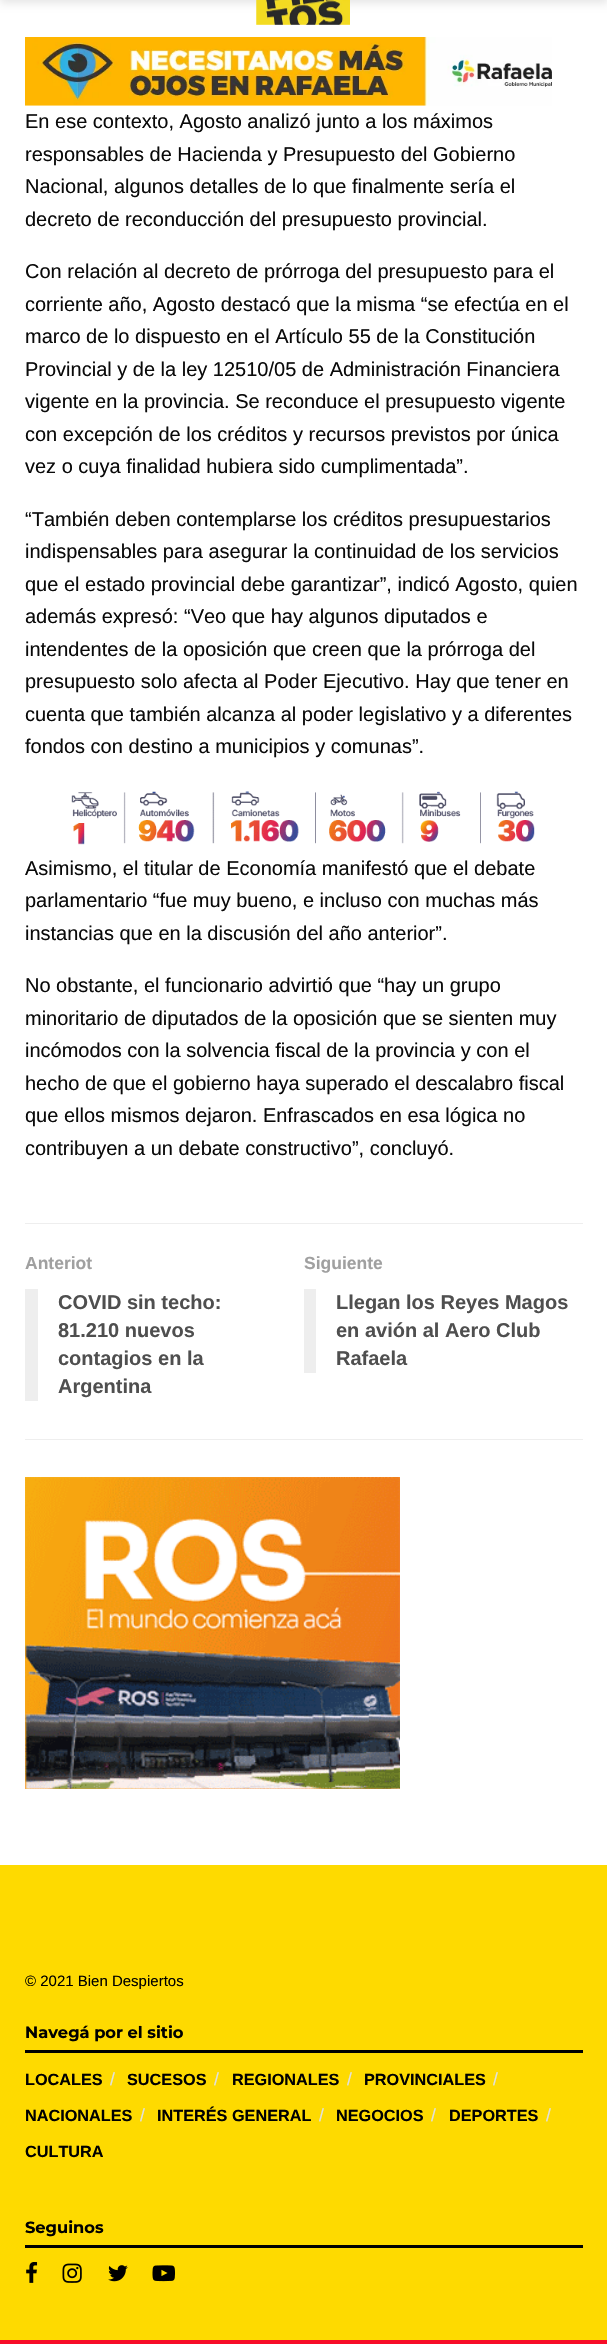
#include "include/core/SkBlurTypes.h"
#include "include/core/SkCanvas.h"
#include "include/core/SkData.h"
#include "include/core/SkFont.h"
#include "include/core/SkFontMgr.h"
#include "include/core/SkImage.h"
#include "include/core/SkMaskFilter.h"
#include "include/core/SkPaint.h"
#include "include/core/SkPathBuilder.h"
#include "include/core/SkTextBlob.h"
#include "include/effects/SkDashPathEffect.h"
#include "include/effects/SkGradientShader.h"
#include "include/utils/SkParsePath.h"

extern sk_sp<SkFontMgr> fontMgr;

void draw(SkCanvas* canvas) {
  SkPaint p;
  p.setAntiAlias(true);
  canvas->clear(SK_ColorWHITE);
  p.setColor(SkColorSetARGB(26, 0, 0, 0));
  p.setMaskFilter(SkMaskFilter::MakeBlur(kNormal_SkBlurStyle, 4));
  canvas->drawRect(SkRect::MakeLTRB(0, -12, 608, 3), p);
  p.setMaskFilter(nullptr);
  canvas->drawImageRect(SkImages::DeferredFromEncodedData(SkData::MakeFromFileName("images/1.png")), SkRect::MakeLTRB(256, 0, 350, 25), SkSamplingOptions());
  canvas->drawImageRect(SkImages::DeferredFromEncodedData(SkData::MakeFromFileName("images/2.png")), SkRect::MakeLTRB(25, 37, 552, 106), SkSamplingOptions());
  canvas->drawImageRect(SkImages::DeferredFromEncodedData(SkData::MakeFromFileName("images/3.png")), SkRect::MakeLTRB(71, 791, 535, 845), SkSamplingOptions());
  p.setColor(SkColorSetRGB(238, 238, 238));
  canvas->drawRect(SkRect::MakeLTRB(25, 1223, 583, 1224), p);
  canvas->drawRect(SkRect::MakeLTRB(25, 1439, 583, 1440), p);
  canvas->drawRect(SkRect::MakeLTRB(25, 1289, 38, 1401), p);
  canvas->drawRect(SkRect::MakeLTRB(304, 1289, 316, 1373), p);
  canvas->drawImageRect(SkImages::DeferredFromEncodedData(SkData::MakeFromFileName("images/4.png")), SkRect::MakeLTRB(25, 1477, 400, 1789), SkSamplingOptions());
  p.setColor(SkColorSetRGB(254, 218, 0));
  canvas->drawRect(SkRect::MakeLTRB(0, 1865, 607, 2340), p);
  p.setColor(SK_ColorBLACK);
  canvas->drawRect(SkRect::MakeLTRB(25, 2050, 583, 2053), p);
  canvas->drawRect(SkRect::MakeLTRB(25, 2245, 583, 2248), p);
  canvas->drawImageRect(SkImages::DeferredFromEncodedData(SkData::MakeFromFileName("images/5.png")), SkRect::MakeLTRB(26, 2262, 38, 2283), SkSamplingOptions());
  canvas->drawImageRect(SkImages::DeferredFromEncodedData(SkData::MakeFromFileName("images/6.png")), SkRect::MakeLTRB(62, 2263, 82, 2283), SkSamplingOptions());
  canvas->drawImageRect(SkImages::DeferredFromEncodedData(SkData::MakeFromFileName("images/7.png")), SkRect::MakeLTRB(108, 2265, 128, 2282), SkSamplingOptions());
  canvas->drawImageRect(SkImages::DeferredFromEncodedData(SkData::MakeFromFileName("images/8.png")), SkRect::MakeLTRB(152, 2265, 175, 2282), SkSamplingOptions());
  p.setColor(SkColorSetRGB(247, 13, 40));
  canvas->drawRect(SkRect::MakeLTRB(0, 2340, 607, 2344), p);
  SkFont font1(fontMgr->matchFamilyStyle("Liberation Sans", SkFontStyle::Normal()), 20);
  font1.setSubpixel(true);
  p.setColor(SkColorSetRGB(10, 10, 10));
  canvas->drawString("En ese contexto, Agosto analizó junto a los máximos", 25, 128, font1, p);
  canvas->drawString("responsables de Hacienda y Presupuesto del Gobierno", 25, 161, font1, p);
  canvas->drawString("Nacional, algunos detalles de lo que finalmente sería el", 25, 193, font1, p);
  canvas->drawString("decreto de reconducción del presupuesto provincial.", 25, 226, font1, p);
  canvas->drawString("Con relación al decreto de prórroga del presupuesto para el", 25, 278, font1, p);
  canvas->drawString("corriente año, Agosto destacó que la misma “se efectúa en el", 25, 311, font1, p);
  canvas->drawString("marco de lo dispuesto en el Artículo 55 de la Constitución", 25, 343, font1, p);
  canvas->drawString("Provincial y de la ley 12510/05 de Administración Financiera", 25, 376, font1, p);
  canvas->drawString("vigente en la provincia. Se reconduce el presupuesto vigente", 25, 408, font1, p);
  canvas->drawString("con excepción de los créditos y recursos previstos por única", 25, 441, font1, p);
  canvas->drawString("vez o cuya finalidad hubiera sido cumplimentada”.", 25, 473, font1, p);
  canvas->drawString("“También deben contemplarse los créditos presupuestarios", 25, 526, font1, p);
  canvas->drawString("indispensables para asegurar la continuidad de los servicios", 25, 558, font1, p);
  canvas->drawString("que el estado provincial debe garantizar”, indicó Agosto, quien", 25, 591, font1, p);
  canvas->drawString("además expresó: “Veo que hay algunos diputados e", 25, 623, font1, p);
  canvas->drawString("intendentes de la oposición que creen que la prórroga del", 25, 656, font1, p);
  canvas->drawString("presupuesto solo afecta al Poder Ejecutivo. Hay que tener en", 25, 688, font1, p);
  canvas->drawString("cuenta que también alcanza al poder legislativo y a diferentes", 25, 721, font1, p);
  canvas->drawString("fondos con destino a municipios y comunas”.", 25, 753, font1, p);
  canvas->drawString("Asimismo, el titular de Economía manifestó que el debate", 25, 875, font1, p);
  canvas->drawString("parlamentario “fue muy bueno, e incluso con muchas más", 25, 907, font1, p);
  canvas->drawString("instancias que en la discusión del año anterior”.", 25, 940, font1, p);
  canvas->drawString("No obstante, el funcionario advirtió que “hay un grupo", 25, 992, font1, p);
  canvas->drawString("minoritario de diputados de la oposición que se sienten muy", 25, 1025, font1, p);
  canvas->drawString("incómodos con la solvencia fiscal de la provincia y con el", 25, 1057, font1, p);
  canvas->drawString("hecho de que el gobierno haya superado el descalabro fiscal", 25, 1090, font1, p);
  canvas->drawString("que ellos mismos dejaron. Enfrascados en esa lógica no", 25, 1122, font1, p);
  canvas->drawString("contribuyen a un debate constructivo”, concluyó.", 25, 1155, font1, p);
  SkFont font2(fontMgr->matchFamilyStyle("Liberation Sans", SkFontStyle::Bold()), 17.5f);
  font2.setSubpixel(true);
  p.setColor(SkColorSetRGB(160, 160, 160));
  canvas->drawString("Anteriot", 25, 1269, font2, p);
  SkFont font3(fontMgr->matchFamilyStyle("Liberation Sans", SkFontStyle::Bold()), 20);
  font3.setSubpixel(true);
  p.setColor(SkColorSetRGB(79, 79, 79));
  canvas->drawString("COVID sin techo:", 58, 1309, font3, p);
  canvas->drawString("81.210 nuevos", 58, 1337, font3, p);
  canvas->drawString("contagios en la", 58, 1365, font3, p);
  canvas->drawString("Argentina", 58, 1393, font3, p);
  p.setColor(SkColorSetRGB(160, 160, 160));
  canvas->drawString("Siguiente", 304, 1269, font2, p);
  p.setColor(SkColorSetRGB(79, 79, 79));
  canvas->drawString("Llegan los Reyes Magos", 336, 1309, font3, p);
  canvas->drawString("en avión al Aero Club", 336, 1337, font3, p);
  canvas->drawString("Rafaela", 336, 1365, font3, p);
  SkFont font4(fontMgr->matchFamilyStyle("Liberation Sans", SkFontStyle::Normal()), 15);
  font4.setSubpixel(true);
  p.setColor(SK_ColorBLACK);
  canvas->drawString("© 2021 Bien Despiertos", 25, 1986, font4, p);
  SkFont font5(fontMgr->matchFamilyStyle("Montserrat", SkFontStyle::Bold()), 16.25f);
  font5.setSubpixel(true);
  canvas->drawString("Navegá por el sitio", 25, 2038, font5, p);
  SkFont font6(fontMgr->matchFamilyStyle("Liberation Sans", SkFontStyle::Bold()), 16.25f);
  font6.setSubpixel(true);
  canvas->drawString("LOCALES", 25, 2085, font6, p);
  SkFont font7(fontMgr->matchFamilyStyle("Liberation Sans", SkFontStyle::Normal()), 17.5f);
  font7.setSubpixel(true);
  p.setColor(SkColorSetRGB(224, 224, 224));
  canvas->drawString("/", 110, 2085, font7, p);
  p.setColor(SK_ColorBLACK);
  canvas->drawString("SUCESOS", 127, 2085, font6, p);
  p.setColor(SkColorSetRGB(224, 224, 224));
  canvas->drawString("/", 214, 2085, font7, p);
  p.setColor(SK_ColorBLACK);
  canvas->drawString("REGIONALES", 232, 2085, font6, p);
  p.setColor(SkColorSetRGB(224, 224, 224));
  canvas->drawString("/", 347, 2085, font7, p);
  p.setColor(SK_ColorBLACK);
  canvas->drawString("PROVINCIALES", 364, 2085, font6, p);
  p.setColor(SkColorSetRGB(224, 224, 224));
  canvas->drawString("/", 493, 2085, font7, p);
  p.setColor(SK_ColorBLACK);
  canvas->drawString("NACIONALES", 25, 2121, font6, p);
  p.setColor(SkColorSetRGB(224, 224, 224));
  canvas->drawString("/", 140, 2121, font7, p);
  p.setColor(SK_ColorBLACK);
  canvas->drawString("INTERÉS GENERAL", 157, 2121, font6, p);
  p.setColor(SkColorSetRGB(224, 224, 224));
  canvas->drawString("/", 319, 2121, font7, p);
  p.setColor(SK_ColorBLACK);
  canvas->drawString("NEGOCIOS", 336, 2121, font6, p);
  p.setColor(SkColorSetRGB(224, 224, 224));
  canvas->drawString("/", 431, 2121, font7, p);
  p.setColor(SK_ColorBLACK);
  canvas->drawString("DEPORTES", 449, 2121, font6, p);
  p.setColor(SkColorSetRGB(224, 224, 224));
  canvas->drawString("/", 546, 2121, font7, p);
  p.setColor(SK_ColorBLACK);
  canvas->drawString("CULTURA", 25, 2157, font6, p);
  canvas->drawString("Seguinos", 25, 2233, font5, p);
}
